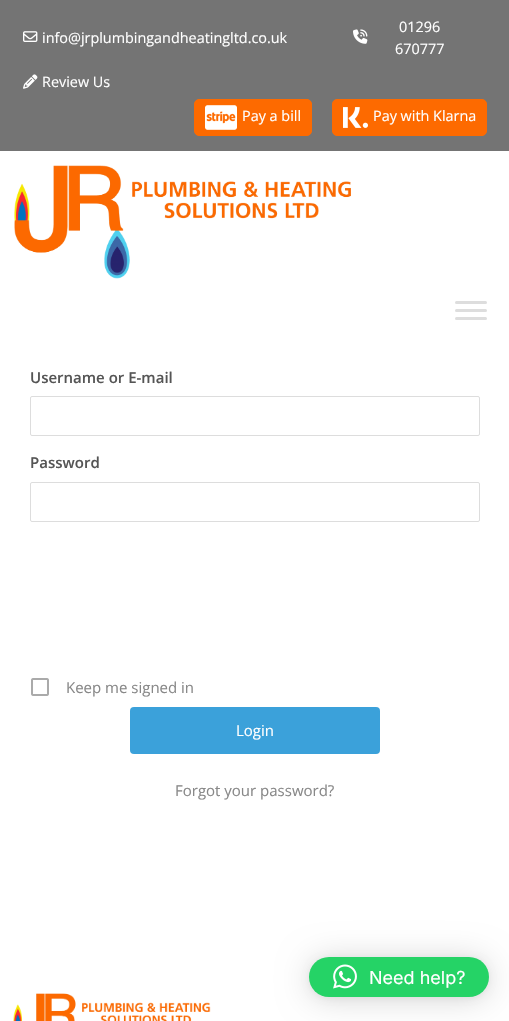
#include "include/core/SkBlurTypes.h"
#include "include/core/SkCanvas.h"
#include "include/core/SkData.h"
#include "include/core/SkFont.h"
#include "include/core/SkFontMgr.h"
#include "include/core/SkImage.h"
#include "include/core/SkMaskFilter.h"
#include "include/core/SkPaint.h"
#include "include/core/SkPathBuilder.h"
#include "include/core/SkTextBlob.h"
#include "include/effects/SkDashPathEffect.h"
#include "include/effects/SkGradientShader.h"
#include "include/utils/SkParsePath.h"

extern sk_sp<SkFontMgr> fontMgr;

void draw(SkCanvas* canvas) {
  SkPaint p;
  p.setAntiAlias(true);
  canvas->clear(SK_ColorWHITE);
  p.setColor(SkColorSetRGB(116, 116, 116));
  canvas->drawRect(SkRect::MakeLTRB(0, 0, 509, 151), p);
  canvas->drawImageRect(SkImages::DeferredFromEncodedData(SkData::MakeFromFileName("images/1.png")), SkRect::MakeLTRB(23, 31, 38, 42), SkSamplingOptions());
  canvas->drawImageRect(SkImages::DeferredFromEncodedData(SkData::MakeFromFileName("images/2.png")), SkRect::MakeLTRB(353, 29, 368, 44), SkSamplingOptions());
  canvas->drawImageRect(SkImages::DeferredFromEncodedData(SkData::MakeFromFileName("images/3.png")), SkRect::MakeLTRB(23, 74, 38, 89), SkSamplingOptions());
  p.setColor(SkColorSetRGB(253, 106, 0));
  canvas->drawRoundRect(SkRect::MakeLTRB(194.5f, 99.5f, 311.5f, 135.5f), 4.5f, 4.5f, p);
  p.setStyle(SkPaint::kStroke_Style);
  p.setStrokeWidth(1);
  canvas->drawRoundRect(SkRect::MakeLTRB(194.5f, 99.5f, 311.5f, 135.5f), 4.5f, 4.5f, p);
  canvas->drawImageRect(SkImages::DeferredFromEncodedData(SkData::MakeFromFileName("images/4.png")), SkRect::MakeLTRB(205, 105, 237, 130), SkSamplingOptions());
  p.setStyle(SkPaint::kFill_Style);
  canvas->drawRoundRect(SkRect::MakeLTRB(332.5f, 99.5f, 486.5f, 135.5f), 4.5f, 4.5f, p);
  p.setStyle(SkPaint::kStroke_Style);
  canvas->drawRoundRect(SkRect::MakeLTRB(332.5f, 99.5f, 486.5f, 135.5f), 4.5f, 4.5f, p);
  canvas->drawImageRect(SkImages::DeferredFromEncodedData(SkData::MakeFromFileName("images/5.png")), SkRect::MakeLTRB(343, 107, 368, 128), SkSamplingOptions());
  canvas->drawImageRect(SkImages::DeferredFromEncodedData(SkData::MakeFromFileName("images/6.png")), SkRect::MakeLTRB(14, 165, 351, 279), SkSamplingOptions());
  p.setStyle(SkPaint::kFill_Style);
  p.setColor(SkColorSetRGB(221, 221, 221));
  canvas->drawRoundRect(SkRect::MakeLTRB(455, 301, 487, 304), 1.5f, 1.5f, p);
  canvas->drawRoundRect(SkRect::MakeLTRB(455, 309, 487, 312), 1.5f, 1.5f, p);
  canvas->drawRoundRect(SkRect::MakeLTRB(455, 317, 487, 320), 1.5f, 1.5f, p);
  p.setStyle(SkPaint::kStroke_Style);
  canvas->drawRoundRect(SkRect::MakeLTRB(30.5f, 396.5f, 479.5f, 435.5f), 1.5f, 1.5f, p);
  canvas->drawRoundRect(SkRect::MakeLTRB(30.5f, 482.5f, 479.5f, 521.5f), 1.5f, 1.5f, p);
  canvas->drawImageRect(SkImages::DeferredFromEncodedData(SkData::MakeFromFileName("images/7.png")), SkRect::MakeLTRB(31, 678, 49, 696), SkSamplingOptions());
  p.setStyle(SkPaint::kFill_Style);
  p.setColor(SkColorSetRGB(59, 161, 218));
  canvas->drawRoundRect(SkRect::MakeLTRB(130, 707, 380, 754), 4, 4, p);
  p.setColor(SkColorSetARGB(41, 0, 0, 0));
  p.setMaskFilter(SkMaskFilter::MakeBlur(kNormal_SkBlurStyle, 16));
  canvas->drawRoundRect(SkRect::MakeLTRB(309, 959, 489, 999), 20, 20, p);
  p.setMaskFilter(nullptr);
  p.setColor(SkColorSetARGB(15, 0, 0, 0));
  p.setMaskFilter(SkMaskFilter::MakeBlur(kNormal_SkBlurStyle, 3));
  canvas->drawRoundRect(SkRect::MakeLTRB(309, 958, 489, 998), 20, 20, p);
  p.setMaskFilter(nullptr);
  p.setColor(SkColorSetRGB(37, 211, 102));
  canvas->drawRoundRect(SkRect::MakeLTRB(309, 957, 489, 997), 20, 20, p);
  canvas->drawImageRect(SkImages::DeferredFromEncodedData(SkData::MakeFromFileName("images/8.png")), SkRect::MakeLTRB(333, 964, 357, 989), SkSamplingOptions());
  canvas->drawImageRect(SkImages::DeferredFromEncodedData(SkData::MakeFromFileName("images/9.png")), SkRect::MakeLTRB(13, 993, 211, 1021), SkSamplingOptions());
  SkFont font1(fontMgr->matchFamilyStyle("Open Sans", SkFontStyle::Normal()), 14.4f);
  font1.setSubpixel(true);
  p.setColor(SK_ColorWHITE);
  canvas->drawString("info@jrplumbingandheatingltd.co.uk", 42, 43, font1, p);
  canvas->drawString("01296", 399, 32, font1, p);
  canvas->drawString("670777", 395, 54, font1, p);
  canvas->drawString("Review Us", 42, 87, font1, p);
  canvas->drawString("Pay a bill", 242, 121, font1, p);
  canvas->drawString("Pay with Klarna", 373, 121, font1, p);
  SkFont font2(fontMgr->matchFamilyStyle("Open Sans", SkFontStyle(600, SkFontStyle::kNormal_Width, SkFontStyle::kUpright_Slant)), 15);
  font2.setSubpixel(true);
  p.setColor(SkColorSetRGB(85, 85, 85));
  canvas->drawString("Username or E-mail", 30, 383, font2, p);
  canvas->drawString("Password", 30, 468, font2, p);
  SkFont font3(fontMgr->matchFamilyStyle("Open Sans", SkFontStyle::Normal()), 15);
  font3.setSubpixel(true);
  p.setColor(SkColorSetRGB(136, 136, 136));
  canvas->drawString("Keep me signed in", 66, 693, font3, p);
  p.setColor(SK_ColorWHITE);
  canvas->drawString("Login", 236, 736, font3, p);
  p.setColor(SkColorSetRGB(136, 136, 136));
  canvas->drawString("Forgot your password?", 175, 796, font3, p);
  SkFont font4(fontMgr->matchFamilyStyle("Inter", SkFontStyle::Normal()), 18);
  font4.setSubpixel(true);
  p.setColor(SK_ColorWHITE);
  canvas->drawString("Need help?", 369, 984, font4, p);
}
